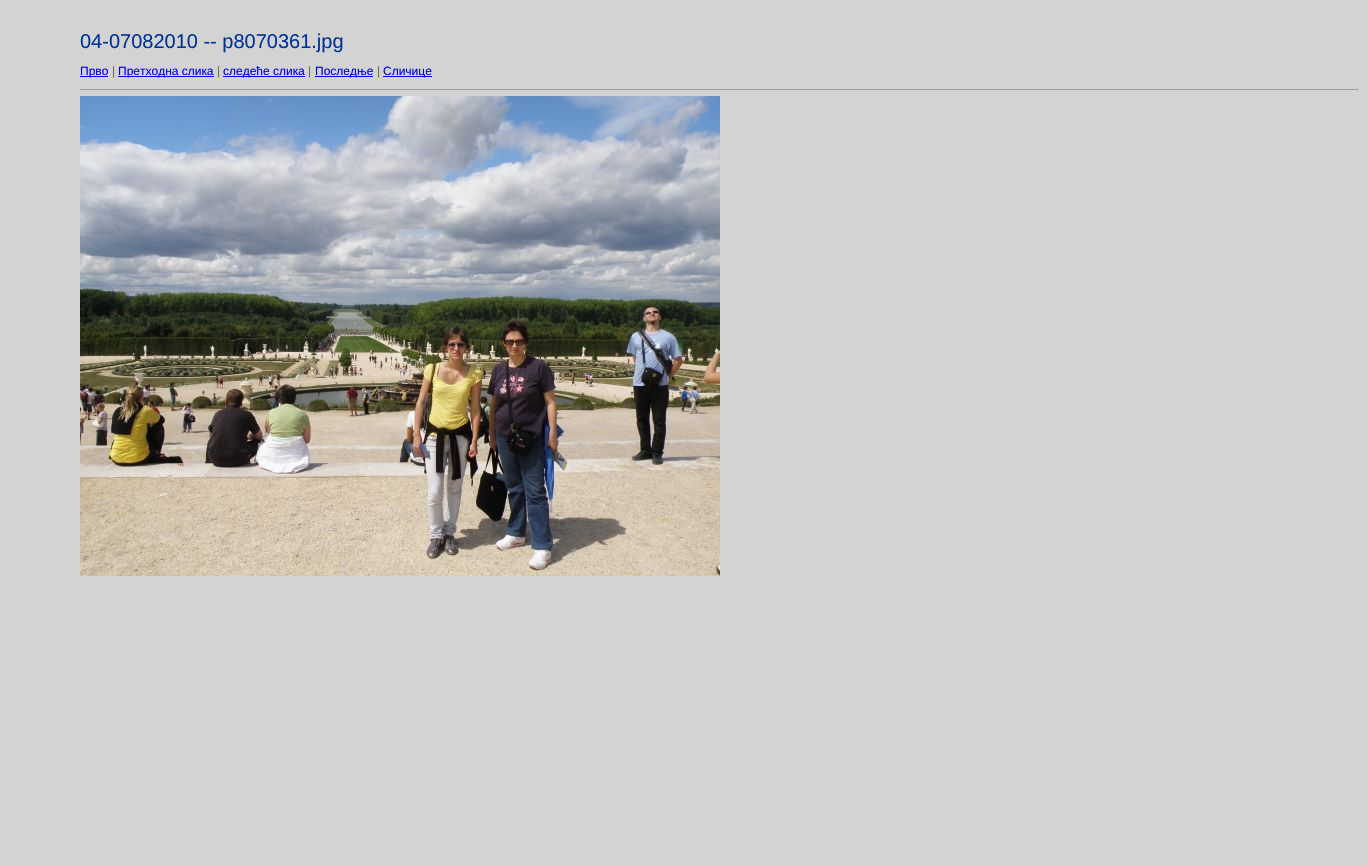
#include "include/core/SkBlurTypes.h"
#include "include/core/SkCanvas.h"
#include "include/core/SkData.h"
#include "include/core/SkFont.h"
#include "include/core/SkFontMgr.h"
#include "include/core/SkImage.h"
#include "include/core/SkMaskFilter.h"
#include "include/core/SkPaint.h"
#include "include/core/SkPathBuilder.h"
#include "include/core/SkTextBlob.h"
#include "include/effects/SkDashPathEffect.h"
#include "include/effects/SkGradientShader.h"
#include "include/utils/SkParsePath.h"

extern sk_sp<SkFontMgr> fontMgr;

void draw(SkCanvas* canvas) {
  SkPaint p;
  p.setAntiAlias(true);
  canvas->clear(SkColorSetRGB(211, 211, 211));
  p.setColor(SkColorSetRGB(0, 0, 238));
  canvas->drawRect(SkRect::MakeLTRB(80, 76, 108, 77), p);
  canvas->drawRect(SkRect::MakeLTRB(118, 76, 214, 77), p);
  canvas->drawRect(SkRect::MakeLTRB(223, 76, 305, 77), p);
  canvas->drawRect(SkRect::MakeLTRB(315, 76, 373, 77), p);
  canvas->drawRect(SkRect::MakeLTRB(383, 76, 432, 77), p);
  p.setColor(SkColorSetRGB(159, 159, 159));
  canvas->drawRect(SkRect::MakeLTRB(80, 89, 1360, 90), p);
  p.setColor(SkColorSetRGB(238, 238, 238));
  canvas->drawRect(SkRect::MakeLTRB(1359, 89, 1360, 90), p);
  canvas->drawImageRect(SkImages::DeferredFromEncodedData(SkData::MakeFromFileName("images/1.png")), SkRect::MakeLTRB(80, 96, 720, 576), SkSamplingOptions());
  SkFont font1(fontMgr->matchFamilyStyle("Liberation Sans", SkFontStyle::Normal()), 20);
  font1.setSubpixel(true);
  p.setColor(SkColorSetRGB(0, 51, 153));
  canvas->drawString("04-07082010 -- p8070361.jpg", 80, 48, font1, p);
  SkFont font2(fontMgr->matchFamilyStyle("Liberation Sans", SkFontStyle::Normal()), 12);
  font2.setSubpixel(true);
  p.setColor(SkColorSetRGB(0, 0, 238));
  canvas->drawString("Прво", 80, 75, font2, p);
  p.setColor(SkColorSetRGB(102, 102, 102));
  canvas->drawString("|", 112, 75, font2, p);
  p.setColor(SkColorSetRGB(0, 0, 238));
  canvas->drawString("Претходна слика", 118, 75, font2, p);
  p.setColor(SkColorSetRGB(102, 102, 102));
  canvas->drawString("|", 217, 75, font2, p);
  p.setColor(SkColorSetRGB(0, 0, 238));
  canvas->drawString("следеће слика", 223, 75, font2, p);
  p.setColor(SkColorSetRGB(102, 102, 102));
  canvas->drawString("|", 308, 75, font2, p);
  p.setColor(SkColorSetRGB(0, 0, 238));
  canvas->drawString("Последње", 315, 75, font2, p);
  p.setColor(SkColorSetRGB(102, 102, 102));
  canvas->drawString("|", 377, 75, font2, p);
  p.setColor(SkColorSetRGB(0, 0, 238));
  canvas->drawString("Сличице", 383, 75, font2, p);
}
